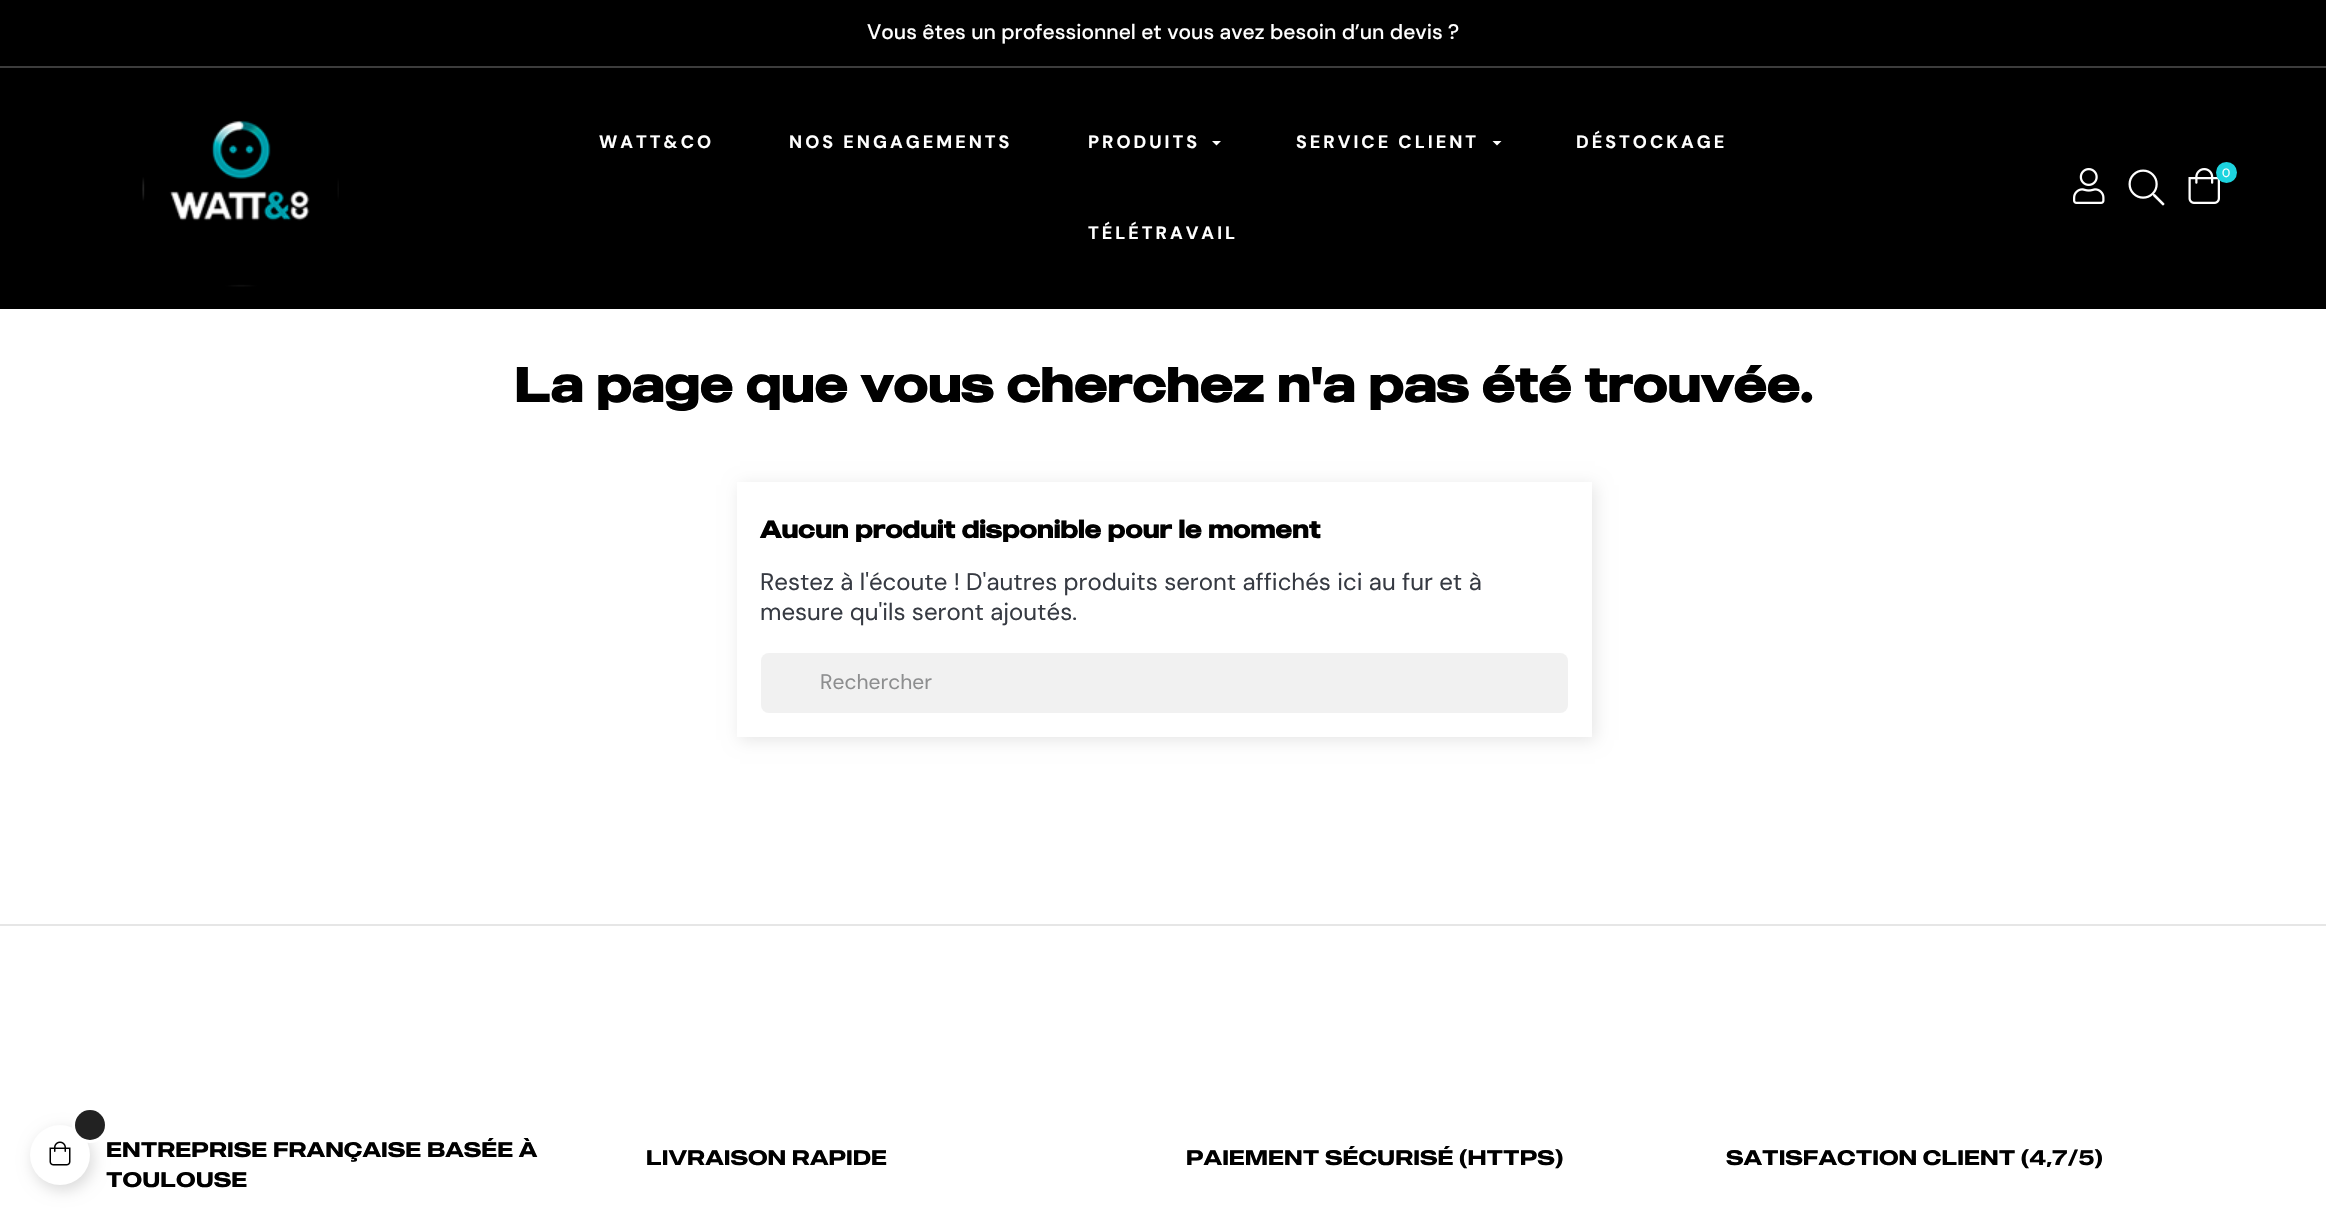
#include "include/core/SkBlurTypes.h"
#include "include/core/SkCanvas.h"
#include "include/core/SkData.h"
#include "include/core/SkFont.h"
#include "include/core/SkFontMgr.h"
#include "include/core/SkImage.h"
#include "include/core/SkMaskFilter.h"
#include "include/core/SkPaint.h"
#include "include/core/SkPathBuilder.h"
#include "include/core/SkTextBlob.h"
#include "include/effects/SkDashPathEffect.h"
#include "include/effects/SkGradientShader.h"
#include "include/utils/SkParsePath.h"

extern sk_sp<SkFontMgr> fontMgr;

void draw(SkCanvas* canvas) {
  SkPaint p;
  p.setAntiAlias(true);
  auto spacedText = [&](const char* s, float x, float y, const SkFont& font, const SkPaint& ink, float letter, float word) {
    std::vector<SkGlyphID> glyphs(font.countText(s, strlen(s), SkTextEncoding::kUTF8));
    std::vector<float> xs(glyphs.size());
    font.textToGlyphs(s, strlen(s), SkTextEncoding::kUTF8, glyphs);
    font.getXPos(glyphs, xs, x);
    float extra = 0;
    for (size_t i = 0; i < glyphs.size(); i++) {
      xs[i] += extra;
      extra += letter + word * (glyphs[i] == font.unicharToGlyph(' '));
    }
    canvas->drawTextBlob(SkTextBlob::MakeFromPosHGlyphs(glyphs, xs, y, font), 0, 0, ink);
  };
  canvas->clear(SK_ColorWHITE);
  p.setColor(SkColorSetARGB(38, 0, 0, 0));
  p.setMaskFilter(SkMaskFilter::MakeBlur(kNormal_SkBlurStyle, 7.5f));
  canvas->drawRoundRect(SkRect::MakeLTRB(33, 1130, 93, 1190), 30, 30, p);
  p.setMaskFilter(nullptr);
  p.setColor(SK_ColorWHITE);
  canvas->drawCircle(60, 1155, 30, p);
  canvas->drawImageRect(SkImages::DeferredFromEncodedData(SkData::MakeFromFileName("images/1.png")), SkRect::MakeLTRB(49, 1141, 71, 1166), SkSamplingOptions());
  p.setColor(SK_ColorBLACK);
  canvas->drawRect(SkRect::MakeLTRB(0, 0, 2326, 66), p);
  canvas->drawRect(SkRect::MakeLTRB(0, 68, 2326, 309), p);
  p.setColor(SkColorSetRGB(60, 60, 60));
  canvas->drawRect(SkRect::MakeLTRB(0, 66, 2326, 68), p);
  canvas->drawImageRect(SkImages::DeferredFromEncodedData(SkData::MakeFromFileName("images/2.png")), SkRect::MakeLTRB(142, 120, 339, 287), SkSamplingOptions());
  p.setColor(SK_ColorWHITE);
  canvas->drawPath(SkPathBuilder().moveTo(1212, 141).lineTo(1221, 141).lineTo(1216.5f, 145.5f).close().detach(), p);
  canvas->drawPath(SkPathBuilder().moveTo(1492.5f, 141).lineTo(1501.5f, 141).lineTo(1497, 145.5f).close().detach(), p);
  canvas->drawImageRect(SkImages::DeferredFromEncodedData(SkData::MakeFromFileName("images/3.png")), SkRect::MakeLTRB(2073, 168, 2105, 204), SkSamplingOptions());
  canvas->drawImageRect(SkImages::DeferredFromEncodedData(SkData::MakeFromFileName("images/4.png")), SkRect::MakeLTRB(2128, 169, 2165, 206), SkSamplingOptions());
  canvas->drawImageRect(SkImages::DeferredFromEncodedData(SkData::MakeFromFileName("images/5.png")), SkRect::MakeLTRB(2188, 168, 2220, 204), SkSamplingOptions());
  p.setColor(SkColorSetRGB(29, 212, 223));
  canvas->drawCircle(2226.5f, 172.5f, 10.5f, p);
  p.setColor(SkColorSetARGB(26, 0, 0, 0));
  p.setMaskFilter(SkMaskFilter::MakeBlur(kNormal_SkBlurStyle, 8));
  canvas->drawRect(SkRect::MakeLTRB(740, 485, 1595, 740), p);
  p.setMaskFilter(nullptr);
  p.setColor(SK_ColorWHITE);
  canvas->drawRect(SkRect::MakeLTRB(737, 482, 1592, 737), p);
  p.setColor(SkColorSetRGB(241, 241, 241));
  canvas->drawRoundRect(SkRect::MakeLTRB(761, 653, 1568, 713), 8, 8, p);
  p.setColor(SkColorSetRGB(230, 230, 230));
  canvas->drawRect(SkRect::MakeLTRB(0, 924, 2326, 926), p);
  SkFont font1(fontMgr->matchFamilyStyle("DM Sans", SkFontStyle(500, SkFontStyle::kNormal_Width, SkFontStyle::kUpright_Slant)), 21);
  font1.setSubpixel(true);
  p.setColor(SK_ColorWHITE);
  canvas->drawString("Vous êtes un professionnel et vous avez besoin d’un devis ?", 867, 39, font1, p);
  SkFont font2(fontMgr->matchFamilyStyle("DM Sans", SkFontStyle::Bold()), 18);
  font2.setSubpixel(true);
  spacedText("WATT&CO", 599, 148, font2, p, 3, 0);
  spacedText("NOS ENGAGEMENTS", 789, 148, font2, p, 3, 0);
  spacedText("PRODUITS", 1088, 148, font2, p, 3, 0);
  spacedText("SERVICE CLIENT", 1296, 148, font2, p, 3, 0);
  spacedText("DÉSTOCKAGE", 1576, 148, font2, p, 3, 0);
  spacedText("TÉLÉTRAVAIL", 1088, 239, font2, p, 3, 0);
  SkFont font3(fontMgr->matchFamilyStyle("DM Sans", SkFontStyle::Normal()), 12);
  font3.setSubpixel(true);
  canvas->drawString("0", 2222, 177, font3, p);
  SkFont font4(fontMgr->matchFamilyStyle("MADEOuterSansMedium", SkFontStyle::Bold()), 48);
  font4.setSubpixel(true);
  p.setColor(SK_ColorBLACK);
  canvas->drawString("La page que vous cherchez n'a pas été trouvée.", 514, 402, font4, p);
  SkFont font5(fontMgr->matchFamilyStyle("MADEOuterSansMedium", SkFontStyle::Bold()), 24);
  font5.setSubpixel(true);
  canvas->drawString("Aucun produit disponible pour le moment", 760, 538, font5, p);
  SkFont font6(fontMgr->matchFamilyStyle("DM Sans", SkFontStyle::Normal()), 24);
  font6.setSubpixel(true);
  p.setColor(SkColorSetRGB(54, 58, 66));
  canvas->drawString("Restez à l'écoute ! D'autres produits seront affichés ici au fur et à", 760, 590, font6, p);
  canvas->drawString("mesure qu'ils seront ajoutés.", 760, 620, font6, p);
  SkFont font7(fontMgr->matchFamilyStyle("DM Sans", SkFontStyle::Normal()), 21);
  font7.setSubpixel(true);
  p.setColor(SkColorSetRGB(141, 142, 143));
  canvas->drawString("Rechercher", 820, 689, font7, p);
  SkFont font8(fontMgr->matchFamilyStyle("MADEOuterSansMedium", SkFontStyle(500, SkFontStyle::kNormal_Width, SkFontStyle::kUpright_Slant)), 21);
  font8.setSubpixel(true);
  p.setColor(SK_ColorBLACK);
  canvas->drawString("ENTREPRISE FRANÇAISE BASÉE À", 106, 1157, font8, p);
  p.setStyle(SkPaint::kStroke_Style);
  p.setStrokeWidth(3);
  p.setColor(SK_ColorWHITE);
  canvas->drawCircle(90, 1125, 16.5f, p);
  p.setStyle(SkPaint::kFill_Style);
  p.setColor(SkColorSetRGB(34, 34, 34));
  canvas->drawCircle(90, 1125, 15, p);
  p.setColor(SK_ColorBLACK);
  canvas->drawString("TOULOUSE", 106, 1187, font8, p);
  canvas->drawString("LIVRAISON RAPIDE", 646, 1165, font8, p);
  canvas->drawString("PAIEMENT SÉCURISÉ (HTTPS)", 1186, 1165, font8, p);
  canvas->drawString("SATISFACTION CLIENT (4,7/5)", 1726, 1165, font8, p);
}
